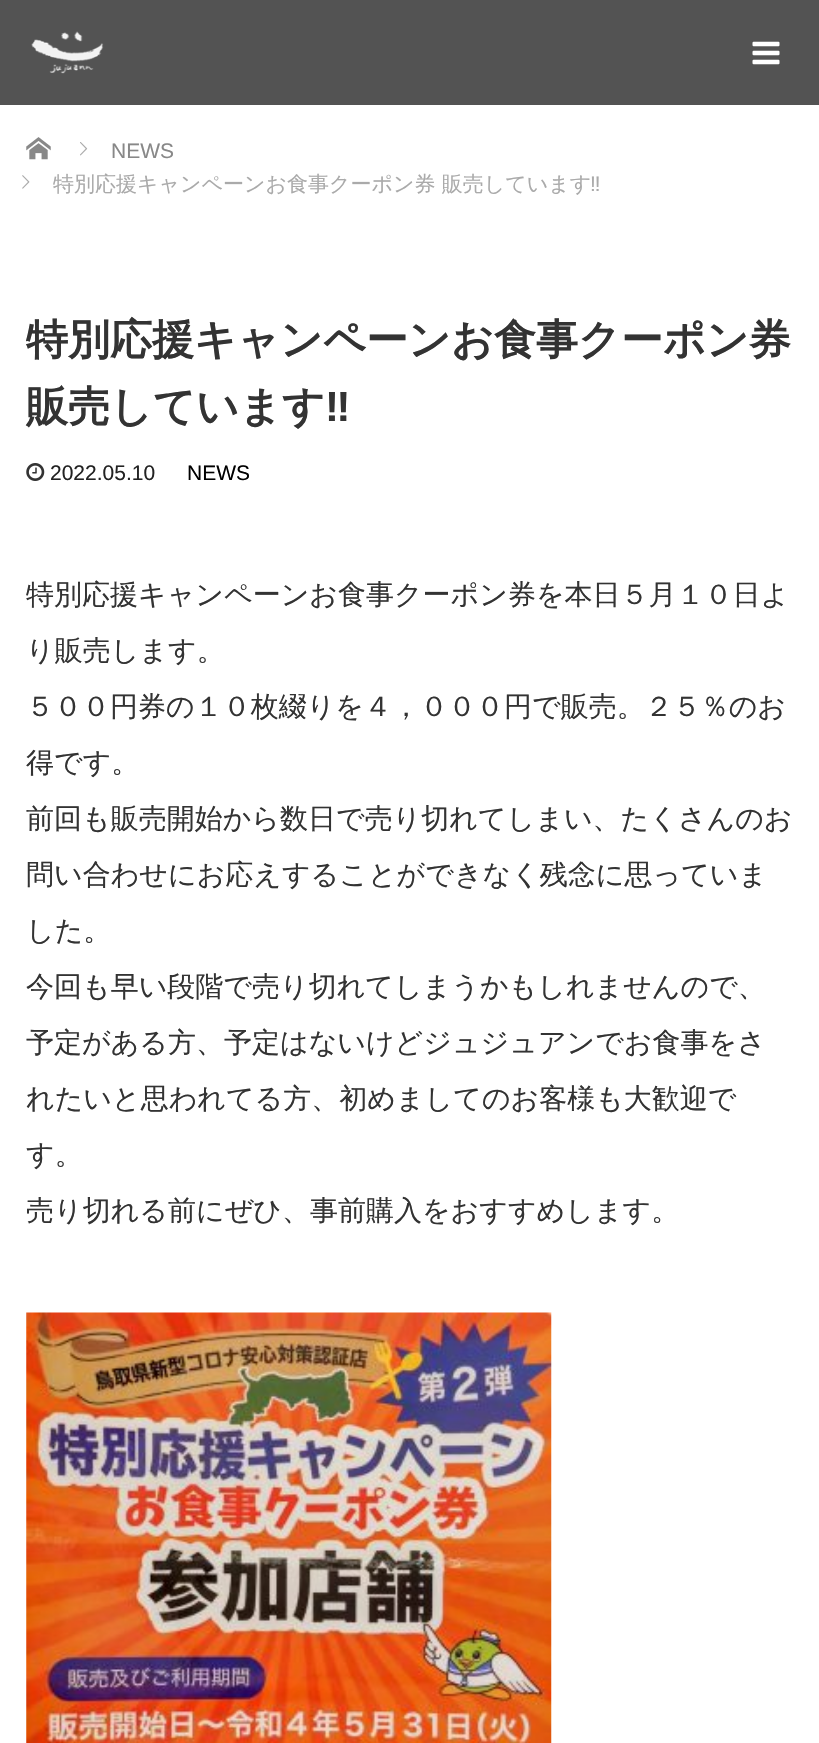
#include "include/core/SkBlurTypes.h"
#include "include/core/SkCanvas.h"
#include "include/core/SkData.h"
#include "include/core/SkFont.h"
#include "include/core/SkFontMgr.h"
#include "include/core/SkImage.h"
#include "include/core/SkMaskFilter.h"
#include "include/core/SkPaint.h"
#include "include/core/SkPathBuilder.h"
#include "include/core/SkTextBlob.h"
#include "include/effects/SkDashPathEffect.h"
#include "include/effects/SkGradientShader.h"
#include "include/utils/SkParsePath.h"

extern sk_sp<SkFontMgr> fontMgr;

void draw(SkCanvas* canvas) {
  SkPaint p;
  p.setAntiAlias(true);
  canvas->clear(SK_ColorWHITE);
  p.setColor(SkColorSetRGB(83, 83, 83));
  canvas->drawRect(SkRect::MakeLTRB(0, 0, 819, 105), p);
  canvas->drawImageRect(SkImages::DeferredFromEncodedData(SkData::MakeFromFileName("images/1.png")), SkRect::MakeLTRB(31, 31, 104, 74), SkSamplingOptions());
  canvas->drawImageRect(SkImages::DeferredFromEncodedData(SkData::MakeFromFileName("images/2.png")), SkRect::MakeLTRB(752, 41, 780, 65), SkSamplingOptions());
  canvas->drawImageRect(SkImages::DeferredFromEncodedData(SkData::MakeFromFileName("images/3.png")), SkRect::MakeLTRB(26, 137, 51, 160), SkSamplingOptions());
  canvas->drawImageRect(SkImages::DeferredFromEncodedData(SkData::MakeFromFileName("images/4.png")), SkRect::MakeLTRB(80, 142, 88, 156), SkSamplingOptions());
  canvas->drawImageRect(SkImages::DeferredFromEncodedData(SkData::MakeFromFileName("images/5.png")), SkRect::MakeLTRB(22, 175, 30, 189), SkSamplingOptions());
  canvas->drawImageRect(SkImages::DeferredFromEncodedData(SkData::MakeFromFileName("images/6.png")), SkRect::MakeLTRB(26, 463, 45, 481), SkSamplingOptions());
  canvas->drawImageRect(SkImages::DeferredFromEncodedData(SkData::MakeFromFileName("images/7.png")), SkRect::MakeLTRB(26, 1312, 552, 1743), SkSamplingOptions());
  SkFont font1(fontMgr->matchFamilyStyle("Liberation Sans", SkFontStyle::Normal()), 21);
  font1.setSubpixel(true);
  p.setColor(SkColorSetRGB(136, 136, 136));
  canvas->drawString("NEWS", 111, 158, font1, p);
  SkFont font2(fontMgr->matchFamilyStyle("WenQuanYi Zen Hei", SkFontStyle(500, SkFontStyle::kNormal_Width, SkFontStyle::kUpright_Slant)), 21);
  font2.setSubpixel(true);
  p.setColor(SkColorSetRGB(170, 170, 170));
  canvas->drawString("特別応援キャンペーンお食事クーポン券 販売しています", 53, 191, font2, p);
  canvas->drawString("‼", 590, 191, font1, p);
  SkFont font3(fontMgr->matchFamilyStyle("WenQuanYi Zen Hei", SkFontStyle::Bold()), 42);
  font3.setSubpixel(true);
  p.setColor(SkColorSetRGB(51, 51, 51));
  canvas->drawString("特別応援キャンペーンお食事クーポン券", 26, 354, font3, p);
  canvas->drawString("販売しています", 26, 421, font3, p);
  SkFont font4(fontMgr->matchFamilyStyle("Liberation Sans", SkFontStyle::Bold()), 42);
  font4.setSubpixel(true);
  canvas->drawString("‼", 325, 421, font4, p);
  p.setColor(SkColorSetRGB(34, 34, 34));
  canvas->drawString("2022.05.10", 50, 480, font1, p);
  p.setColor(SK_ColorBLACK);
  canvas->drawString("NEWS", 187, 480, font1, p);
  SkFont font5(fontMgr->matchFamilyStyle("WenQuanYi Zen Hei", SkFontStyle(500, SkFontStyle::kNormal_Width, SkFontStyle::kUpright_Slant)), 28);
  font5.setSubpixel(true);
  p.setColor(SkColorSetRGB(51, 51, 51));
  canvas->drawString("特別応援キャンペーンお食事クーポン券を本日５月１０日よ", 26, 604, font5, p);
  canvas->drawString("り販売します。", 26, 660, font5, p);
  canvas->drawString("５００円券の１０枚綴りを４，０００円で販売。２５％のお", 26, 716, font5, p);
  canvas->drawString("得です。", 26, 772, font5, p);
  canvas->drawString("前回も販売開始から数日で売り切れてしまい、たくさんのお", 26, 828, font5, p);
  canvas->drawString("問い合わせにお応えすることができなく残念に思っていま", 26, 884, font5, p);
  canvas->drawString("した。", 26, 940, font5, p);
  canvas->drawString("今回も早い段階で売り切れてしまうかもしれませんので、", 26, 996, font5, p);
  canvas->drawString("予定がある方、予定はないけどジュジュアンでお食事をさ", 26, 1052, font5, p);
  canvas->drawString("れたいと思われてる方、初めましてのお客様も大歓迎で", 26, 1108, font5, p);
  canvas->drawString("す。", 26, 1164, font5, p);
  canvas->drawString("売り切れる前にぜひ、事前購入をおすすめします。", 26, 1220, font5, p);
}
